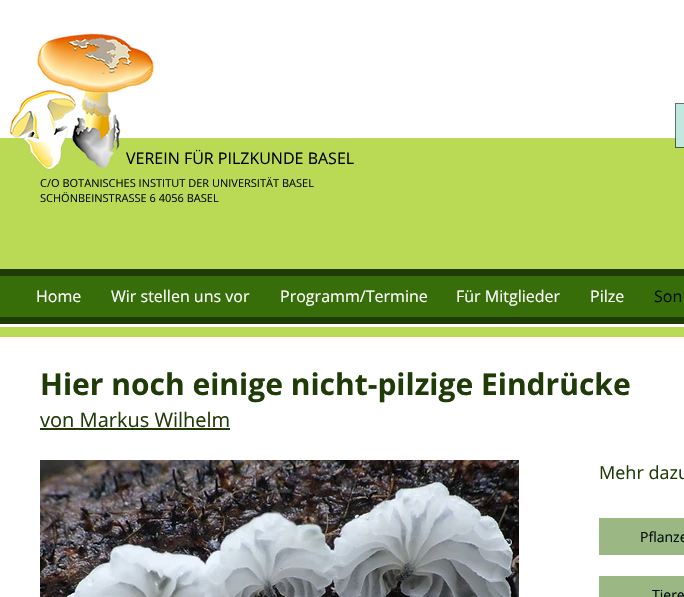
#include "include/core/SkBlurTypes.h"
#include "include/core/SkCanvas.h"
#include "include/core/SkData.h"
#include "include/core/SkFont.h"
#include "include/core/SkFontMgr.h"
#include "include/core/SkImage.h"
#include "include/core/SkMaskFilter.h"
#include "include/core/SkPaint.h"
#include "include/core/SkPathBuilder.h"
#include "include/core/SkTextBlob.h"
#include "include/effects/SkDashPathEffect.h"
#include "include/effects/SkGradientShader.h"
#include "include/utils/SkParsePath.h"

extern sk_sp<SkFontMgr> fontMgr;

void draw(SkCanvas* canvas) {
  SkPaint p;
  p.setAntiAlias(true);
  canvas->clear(SK_ColorWHITE);
  p.setColor(SkColorSetRGB(186, 218, 85));
  canvas->drawRect(SkRect::MakeLTRB(0, 138, 684, 269), p);
  p.setStyle(SkPaint::kStroke_Style);
  p.setStrokeWidth(1);
  p.setColor(SkColorSetARGB(153, 0, 13, 9));
  canvas->drawRect(SkRect::MakeLTRB(675.5f, 103.5f, 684.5f, 147.5f), p);
  p.setStyle(SkPaint::kFill_Style);
  p.setColor(SkColorSetRGB(192, 232, 222));
  canvas->drawRect(SkRect::MakeLTRB(676, 104, 684, 147), p);
  p.setColor(SkColorSetRGB(31, 59, 8));
  canvas->drawRect(SkRect::MakeLTRB(0, 269, 684, 276), p);
  p.setColor(SkColorSetRGB(55, 110, 9));
  canvas->drawRect(SkRect::MakeLTRB(0, 276, 684, 317), p);
  p.setColor(SkColorSetRGB(31, 59, 8));
  canvas->drawRect(SkRect::MakeLTRB(0, 317, 684, 324), p);
  p.setColor(SkColorSetRGB(186, 218, 85));
  canvas->drawRect(SkRect::MakeLTRB(0, 327, 684, 337), p);
  p.setColor(SkColorSetRGB(31, 59, 8));
  canvas->drawRect(SkRect::MakeLTRB(40, 428, 230, 430), p);
  canvas->drawImageRect(SkImages::DeferredFromEncodedData(SkData::MakeFromFileName("images/2.png")), SkRect::MakeLTRB(40, 460, 519, 597), SkSamplingOptions());
  p.setColor(SkColorSetRGB(155, 183, 132));
  canvas->drawRect(SkRect::MakeLTRB(599, 518, 684, 555), p);
  canvas->drawRect(SkRect::MakeLTRB(599, 576, 684, 597), p);
  SkFont font1(fontMgr->matchFamilyStyle("Open Sans", SkFontStyle::Normal()), 16);
  font1.setSubpixel(true);
  p.setColor(SK_ColorBLACK);
  canvas->drawString("VEREIN FÜR PILZKUNDE BASEL", 126, 164, font1, p);
  canvas->drawImageRect(SkImages::DeferredFromEncodedData(SkData::MakeFromFileName("images/1.png")), SkRect::MakeLTRB(10, 33, 154, 170), SkSamplingOptions());
  SkFont font2(fontMgr->matchFamilyStyle("Open Sans", SkFontStyle::Normal()), 11);
  font2.setSubpixel(true);
  p.setColor(SkColorSetRGB(0, 13, 9));
  canvas->drawString("C/O BOTANISCHES INSTITUT DER UNIVERSITÄT BASEL", 40, 187, font2, p);
  canvas->drawString("SCHÖNBEINSTRASSE 6 4056 BASEL", 40, 202, font2, p);
  p.setColor(SK_ColorWHITE);
  canvas->drawString("Home", 36, 302, font1, p);
  canvas->drawString("Wir stellen uns vor", 111, 302, font1, p);
  canvas->drawString("Programm/Termine", 280, 302, font1, p);
  canvas->drawString("Für Mitglieder", 456, 302, font1, p);
  canvas->drawString("Pilze", 590, 302, font1, p);
  p.setColor(SkColorSetRGB(0, 13, 9));
  canvas->drawString("Son", 654, 302, font1, p);
  SkFont font3(fontMgr->matchFamilyStyle("Open Sans", SkFontStyle::Bold()), 30);
  font3.setSubpixel(true);
  p.setColor(SkColorSetRGB(31, 59, 8));
  canvas->drawString("Hier noch einige nicht-pilzige Eindrücke", 40, 395, font3, p);
  SkFont font4(fontMgr->matchFamilyStyle("Open Sans", SkFontStyle::Normal()), 20);
  font4.setSubpixel(true);
  canvas->drawString("von Markus Wilhelm", 40, 427, font4, p);
  SkFont font5(fontMgr->matchFamilyStyle("Open Sans", SkFontStyle::Normal()), 18);
  font5.setSubpixel(true);
  canvas->drawString("Mehr dazu", 599, 479, font5, p);
  SkFont font6(fontMgr->matchFamilyStyle("Open Sans", SkFontStyle::Normal()), 14);
  font6.setSubpixel(true);
  p.setColor(SkColorSetRGB(0, 13, 9));
  canvas->drawString("Pflanze", 640, 542, font6, p);
  canvas->drawString("Tiere", 652, 600, font6, p);
}
